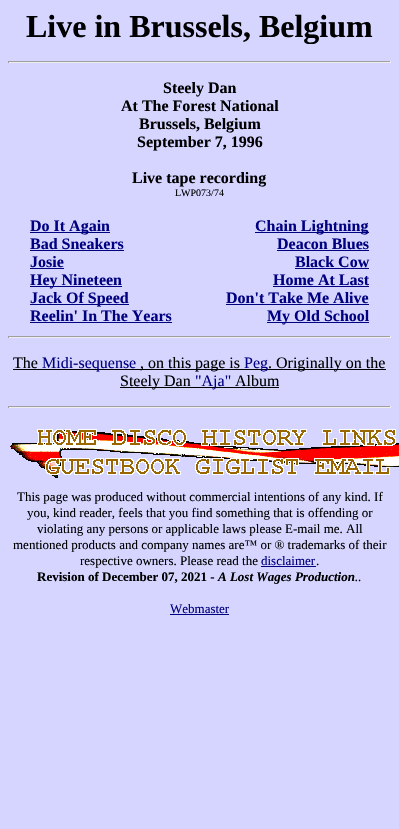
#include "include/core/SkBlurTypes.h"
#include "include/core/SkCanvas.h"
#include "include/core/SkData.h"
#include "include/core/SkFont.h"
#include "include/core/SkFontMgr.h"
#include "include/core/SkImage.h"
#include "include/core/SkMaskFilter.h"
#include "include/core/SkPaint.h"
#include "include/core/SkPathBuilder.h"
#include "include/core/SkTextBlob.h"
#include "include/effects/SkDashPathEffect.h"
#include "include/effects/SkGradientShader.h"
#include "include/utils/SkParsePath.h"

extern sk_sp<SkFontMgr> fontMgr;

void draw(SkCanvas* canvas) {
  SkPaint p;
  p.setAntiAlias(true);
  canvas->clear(SkColorSetRGB(213, 213, 255));
  p.setColor(SkColorSetRGB(159, 159, 159));
  canvas->drawRect(SkRect::MakeLTRB(8, 61, 391, 62), p);
  p.setColor(SkColorSetRGB(238, 238, 238));
  canvas->drawRect(SkRect::MakeLTRB(390, 61, 391, 63), p);
  canvas->drawRect(SkRect::MakeLTRB(8, 62, 391, 63), p);
  p.setColor(SkColorSetRGB(159, 159, 159));
  canvas->drawRect(SkRect::MakeLTRB(8, 61, 9, 63), p);
  p.setColor(SkColorSetRGB(0, 0, 128));
  canvas->drawRect(SkRect::MakeLTRB(30, 232, 110, 233), p);
  canvas->drawRect(SkRect::MakeLTRB(30, 250, 124, 251), p);
  canvas->drawRect(SkRect::MakeLTRB(30, 268, 64, 269), p);
  canvas->drawRect(SkRect::MakeLTRB(30, 286, 122, 287), p);
  canvas->drawRect(SkRect::MakeLTRB(30, 304, 129, 305), p);
  canvas->drawRect(SkRect::MakeLTRB(30, 322, 172, 323), p);
  canvas->drawRect(SkRect::MakeLTRB(255, 232, 369, 233), p);
  canvas->drawRect(SkRect::MakeLTRB(277, 250, 369, 251), p);
  canvas->drawRect(SkRect::MakeLTRB(295, 268, 369, 269), p);
  canvas->drawRect(SkRect::MakeLTRB(273, 286, 369, 287), p);
  canvas->drawRect(SkRect::MakeLTRB(226, 304, 369, 305), p);
  canvas->drawRect(SkRect::MakeLTRB(267, 322, 369, 323), p);
  p.setColor(SkColorSetRGB(159, 159, 159));
  canvas->drawRect(SkRect::MakeLTRB(8, 336, 391, 337), p);
  p.setColor(SkColorSetRGB(238, 238, 238));
  canvas->drawRect(SkRect::MakeLTRB(390, 336, 391, 338), p);
  canvas->drawRect(SkRect::MakeLTRB(8, 337, 391, 338), p);
  p.setColor(SkColorSetRGB(159, 159, 159));
  canvas->drawRect(SkRect::MakeLTRB(8, 336, 9, 338), p);
  p.setColor(SK_ColorBLACK);
  canvas->drawRect(SkRect::MakeLTRB(13, 369, 268, 370), p);
  canvas->drawRect(SkRect::MakeLTRB(120, 387, 279, 388), p);
  p.setColor(SkColorSetRGB(159, 159, 159));
  canvas->drawRect(SkRect::MakeLTRB(8, 406, 391, 407), p);
  p.setColor(SkColorSetRGB(238, 238, 238));
  canvas->drawRect(SkRect::MakeLTRB(390, 406, 391, 408), p);
  canvas->drawRect(SkRect::MakeLTRB(8, 407, 391, 408), p);
  p.setColor(SkColorSetRGB(159, 159, 159));
  canvas->drawRect(SkRect::MakeLTRB(8, 406, 9, 408), p);
  canvas->drawImageRect(SkImages::DeferredFromEncodedData(SkData::MakeFromFileName("images/1.png")), SkRect::MakeLTRB(10, 429, 399, 478), SkSamplingOptions());
  p.setColor(SkColorSetRGB(0, 0, 128));
  canvas->drawRect(SkRect::MakeLTRB(261, 566, 316, 567), p);
  canvas->drawRect(SkRect::MakeLTRB(170, 614, 229, 615), p);
  SkFont font1(fontMgr->matchFamilyStyle("Liberation Serif", SkFontStyle::Bold()), 32);
  font1.setSubpixel(true);
  p.setColor(SK_ColorBLACK);
  canvas->drawString("Live in Brussels, Belgium", 26, 37, font1, p);
  SkFont font2(fontMgr->matchFamilyStyle("Liberation Serif", SkFontStyle::Bold()), 16);
  font2.setSubpixel(true);
  canvas->drawString("Steely Dan", 163, 93, font2, p);
  canvas->drawString("At The Forest National", 121, 111, font2, p);
  canvas->drawString("Brussels, Belgium", 139, 129, font2, p);
  canvas->drawString("September 7, 1996", 137, 147, font2, p);
  canvas->drawString("Live tape recording", 132, 183, font2, p);
  SkFont font3(fontMgr->matchFamilyStyle("Liberation Serif", SkFontStyle::Normal()), 10);
  font3.setSubpixel(true);
  canvas->drawString("LWP073/74", 175, 196, font3, p);
  p.setColor(SkColorSetRGB(0, 0, 128));
  canvas->drawString("Do It Again", 30, 231, font2, p);
  canvas->drawString("Bad Sneakers", 30, 249, font2, p);
  canvas->drawString("Josie", 30, 267, font2, p);
  canvas->drawString("Hey Nineteen", 30, 285, font2, p);
  canvas->drawString("Jack Of Speed", 30, 303, font2, p);
  canvas->drawString("Reelin' In The Years", 30, 321, font2, p);
  canvas->drawString("Chain Lightning", 255, 231, font2, p);
  canvas->drawString("Deacon Blues", 277, 249, font2, p);
  canvas->drawString("Black Cow", 295, 267, font2, p);
  canvas->drawString("Home At Last", 273, 285, font2, p);
  canvas->drawString("Don't Take Me Alive", 226, 303, font2, p);
  canvas->drawString("My Old School", 267, 321, font2, p);
  SkFont font4(fontMgr->matchFamilyStyle("Liberation Serif", SkFontStyle::Normal()), 16);
  font4.setSubpixel(true);
  p.setColor(SK_ColorBLACK);
  canvas->drawString("The", 13, 368, font4, p);
  p.setColor(SkColorSetRGB(0, 0, 128));
  canvas->drawString("Midi-sequense", 42, 368, font4, p);
  p.setColor(SK_ColorBLACK);
  canvas->drawString(", on this page is", 140, 368, font4, p);
  p.setColor(SkColorSetRGB(0, 0, 128));
  canvas->drawString("Peg", 244, 368, font4, p);
  p.setColor(SK_ColorBLACK);
  canvas->drawRect(SkRect::MakeLTRB(268, 369, 386, 370), p);
  canvas->drawString(". Originally on the", 268, 368, font4, p);
  canvas->drawString("Steely Dan", 120, 386, font4, p);
  p.setColor(SkColorSetRGB(0, 0, 128));
  canvas->drawString("\"Aja\"", 195, 386, font4, p);
  p.setColor(SK_ColorBLACK);
  canvas->drawString("Album", 235, 386, font4, p);
  SkFont font5(fontMgr->matchFamilyStyle("Liberation Serif", SkFontStyle::Normal()), 13);
  font5.setSubpixel(true);
  canvas->drawString("This page was produced without commercial intentions of any kind. If", 17, 501, font5, p);
  canvas->drawString("you, kind reader, feels that you find something that is offending or", 27, 517, font5, p);
  canvas->drawString("violating any persons or applicable laws please E-mail me. All", 37, 533, font5, p);
  canvas->drawString("mentioned products and company names are™ or ® trademarks of their", 13, 549, font5, p);
  canvas->drawString("respective owners. Please read the", 80, 565, font5, p);
  p.setColor(SkColorSetRGB(0, 0, 128));
  canvas->drawString("disclaimer", 261, 565, font5, p);
  p.setColor(SK_ColorBLACK);
  canvas->drawString(".", 316, 565, font5, p);
  SkFont font6(fontMgr->matchFamilyStyle("Liberation Serif", SkFontStyle::Bold()), 13);
  font6.setSubpixel(true);
  canvas->drawString("Revision of December 07, 2021 -", 37, 581, font6, p);
  SkFont font7(fontMgr->matchFamilyStyle("Liberation Serif", SkFontStyle::BoldItalic()), 13);
  font7.setSubpixel(true);
  canvas->drawString("A Lost Wages Production", 218, 581, font7, p);
  SkFont font8(fontMgr->matchFamilyStyle("Liberation Serif", SkFontStyle::Italic()), 13);
  font8.setSubpixel(true);
  canvas->drawString("..", 355, 581, font8, p);
  p.setColor(SkColorSetRGB(0, 0, 128));
  canvas->drawString("Webmaster", 170, 613, font5, p);
}
